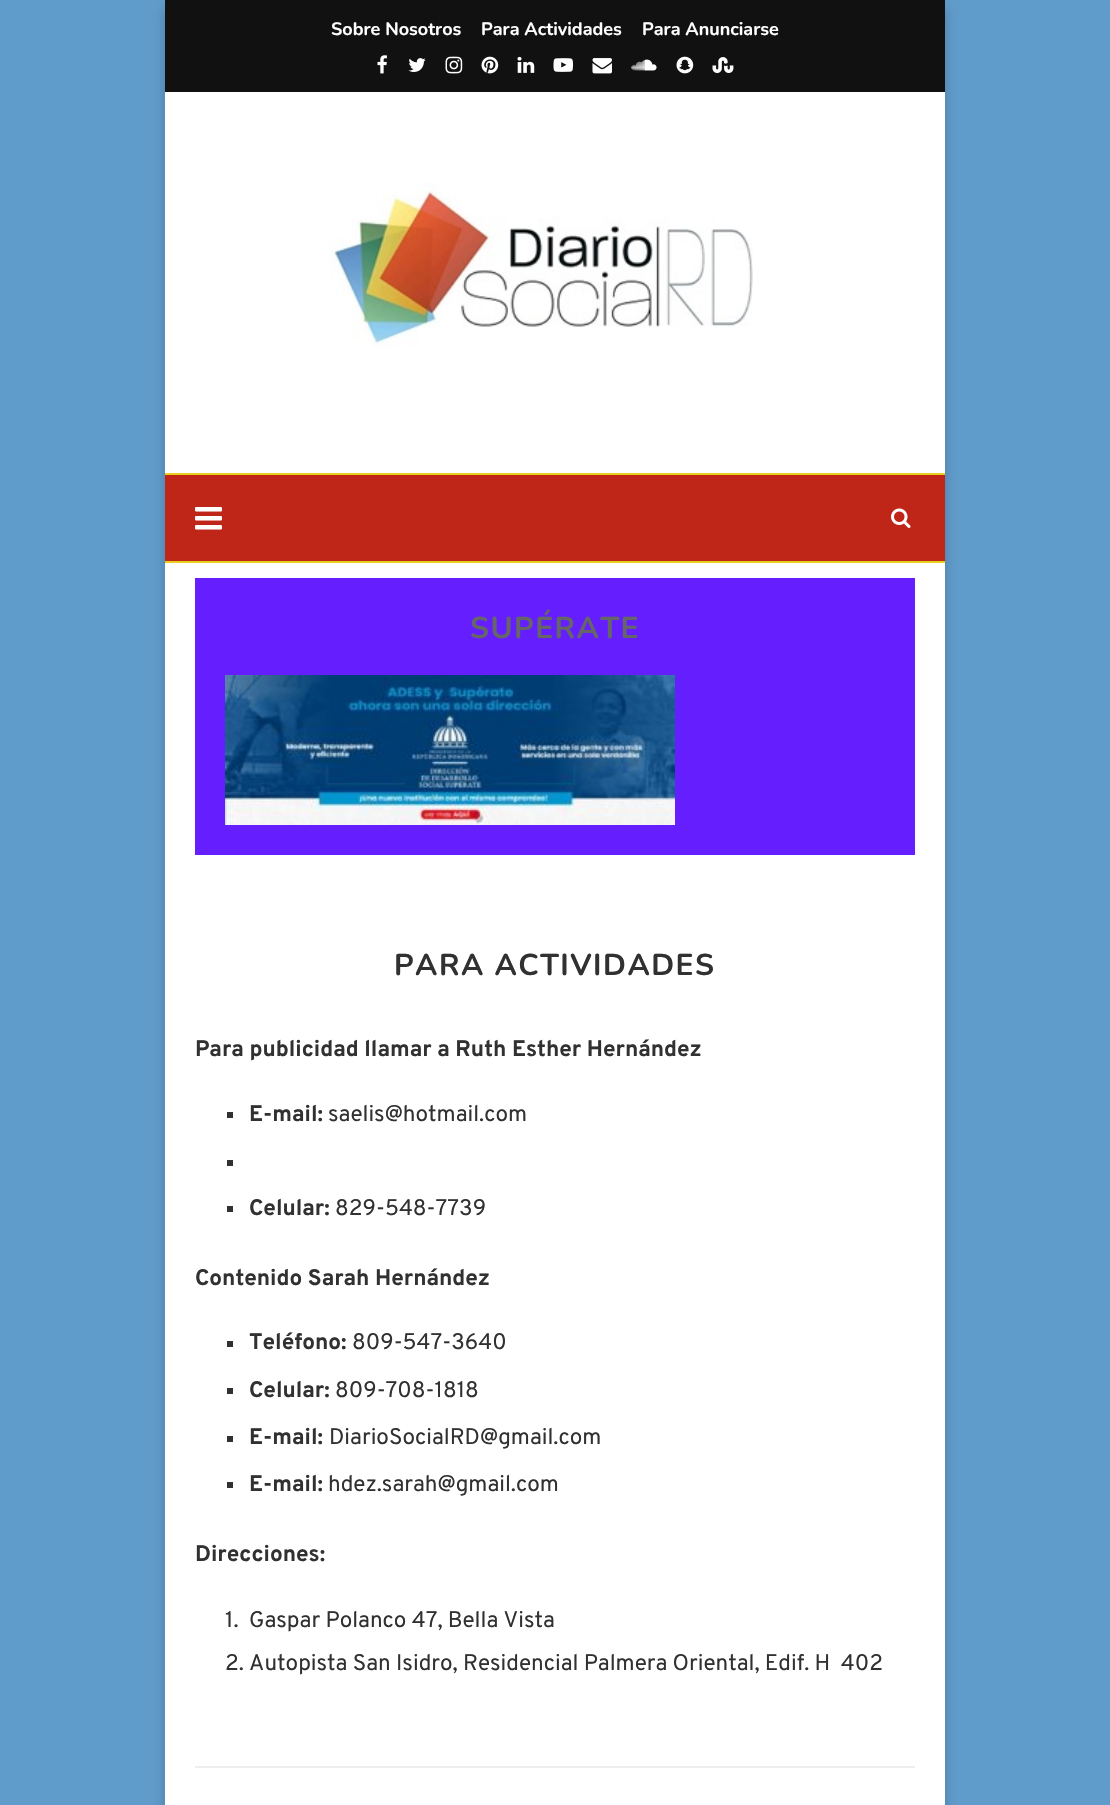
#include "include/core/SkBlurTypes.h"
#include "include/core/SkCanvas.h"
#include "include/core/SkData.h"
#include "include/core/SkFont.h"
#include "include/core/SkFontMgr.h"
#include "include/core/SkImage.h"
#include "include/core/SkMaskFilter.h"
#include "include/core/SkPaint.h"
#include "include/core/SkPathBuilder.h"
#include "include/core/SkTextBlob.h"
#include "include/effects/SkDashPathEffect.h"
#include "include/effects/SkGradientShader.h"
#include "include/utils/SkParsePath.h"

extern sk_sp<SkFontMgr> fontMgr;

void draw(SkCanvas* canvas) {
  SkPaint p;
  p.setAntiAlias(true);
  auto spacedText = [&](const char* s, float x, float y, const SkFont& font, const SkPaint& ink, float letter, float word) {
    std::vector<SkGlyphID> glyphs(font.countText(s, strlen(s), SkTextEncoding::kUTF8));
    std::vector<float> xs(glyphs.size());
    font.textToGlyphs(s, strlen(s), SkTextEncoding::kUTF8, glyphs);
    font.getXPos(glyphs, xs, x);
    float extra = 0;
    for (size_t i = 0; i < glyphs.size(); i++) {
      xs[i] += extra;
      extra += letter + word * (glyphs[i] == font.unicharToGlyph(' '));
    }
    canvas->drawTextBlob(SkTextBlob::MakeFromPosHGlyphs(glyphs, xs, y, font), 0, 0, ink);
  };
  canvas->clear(SkColorSetRGB(96, 156, 203));
  p.setColor(SkColorSetARGB(51, 0, 0, 0));
  p.setMaskFilter(SkMaskFilter::MakeBlur(kNormal_SkBlurStyle, 6));
  canvas->drawRect(SkRect::MakeLTRB(165, 8, 945, 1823), p);
  p.setMaskFilter(nullptr);
  p.setColor(SK_ColorWHITE);
  canvas->drawRect(SkRect::MakeLTRB(165, 92, 945, 1805), p);
  p.setColor(SkColorSetRGB(17, 17, 17));
  canvas->drawRect(SkRect::MakeLTRB(165, 0, 945, 92), p);
  canvas->drawImageRect(SkImages::DeferredFromEncodedData(SkData::MakeFromFileName("images/1.png")), SkRect::MakeLTRB(377, 55, 387, 74), SkSamplingOptions());
  canvas->drawImageRect(SkImages::DeferredFromEncodedData(SkData::MakeFromFileName("images/2.png")), SkRect::MakeLTRB(408, 58, 426, 72), SkSamplingOptions());
  canvas->drawImageRect(SkImages::DeferredFromEncodedData(SkData::MakeFromFileName("images/3.png")), SkRect::MakeLTRB(445, 56, 463, 74), SkSamplingOptions());
  canvas->drawImageRect(SkImages::DeferredFromEncodedData(SkData::MakeFromFileName("images/4.png")), SkRect::MakeLTRB(481, 56, 499, 74), SkSamplingOptions());
  canvas->drawImageRect(SkImages::DeferredFromEncodedData(SkData::MakeFromFileName("images/5.png")), SkRect::MakeLTRB(517, 56, 535, 73), SkSamplingOptions());
  canvas->drawImageRect(SkImages::DeferredFromEncodedData(SkData::MakeFromFileName("images/6.png")), SkRect::MakeLTRB(553, 58, 573, 72), SkSamplingOptions());
  canvas->drawImageRect(SkImages::DeferredFromEncodedData(SkData::MakeFromFileName("images/7.png")), SkRect::MakeLTRB(592, 58, 612, 74), SkSamplingOptions());
  canvas->drawImageRect(SkImages::DeferredFromEncodedData(SkData::MakeFromFileName("images/8.png")), SkRect::MakeLTRB(631, 59, 657, 71), SkSamplingOptions());
  canvas->drawImageRect(SkImages::DeferredFromEncodedData(SkData::MakeFromFileName("images/9.png")), SkRect::MakeLTRB(676, 56, 694, 74), SkSamplingOptions());
  canvas->drawImageRect(SkImages::DeferredFromEncodedData(SkData::MakeFromFileName("images/10.png")), SkRect::MakeLTRB(712, 57, 734, 73), SkSamplingOptions());
  canvas->drawImageRect(SkImages::DeferredFromEncodedData(SkData::MakeFromFileName("images/11.png")), SkRect::MakeLTRB(330, 182, 753, 348), SkSamplingOptions());
  p.setColor(SkColorSetRGB(191, 38, 24));
  canvas->drawRect(SkRect::MakeLTRB(165, 475, 945, 561), p);
  p.setColor(SkColorSetRGB(234, 207, 30));
  canvas->drawRect(SkRect::MakeLTRB(165, 473, 945, 475), p);
  canvas->drawRect(SkRect::MakeLTRB(165, 561, 945, 563), p);
  canvas->drawImageRect(SkImages::DeferredFromEncodedData(SkData::MakeFromFileName("images/12.png")), SkRect::MakeLTRB(195, 507, 222, 530), SkSamplingOptions());
  canvas->drawImageRect(SkImages::DeferredFromEncodedData(SkData::MakeFromFileName("images/13.png")), SkRect::MakeLTRB(891, 508, 911, 528), SkSamplingOptions());
  p.setColor(SkColorSetRGB(101, 31, 255));
  canvas->drawRect(SkRect::MakeLTRB(195, 578, 915, 855), p);
  canvas->drawImageRect(SkImages::DeferredFromEncodedData(SkData::MakeFromFileName("images/14.png")), SkRect::MakeLTRB(225, 675, 675, 825), SkSamplingOptions());
  p.setColor(SkColorSetRGB(49, 49, 49));
  canvas->drawRect(SkRect::MakeLTRB(227, 1112, 233, 1118), p);
  canvas->drawRect(SkRect::MakeLTRB(227, 1160, 233, 1166), p);
  canvas->drawRect(SkRect::MakeLTRB(227, 1206, 233, 1212), p);
  canvas->drawRect(SkRect::MakeLTRB(227, 1341, 233, 1347), p);
  canvas->drawRect(SkRect::MakeLTRB(227, 1388, 233, 1394), p);
  canvas->drawRect(SkRect::MakeLTRB(227, 1436, 233, 1442), p);
  canvas->drawRect(SkRect::MakeLTRB(227, 1482, 233, 1488), p);
  p.setColor(SkColorSetRGB(238, 238, 238));
  canvas->drawRect(SkRect::MakeLTRB(195, 1766, 915, 1768), p);
  SkFont font1(fontMgr->matchFamilyStyle("Nunito", SkFontStyle::Bold()), 18);
  font1.setSubpixel(true);
  p.setColor(SK_ColorWHITE);
  canvas->drawString("Sobre Nosotros", 331, 35, font1, p);
  canvas->drawString("Para Actividades", 481, 35, font1, p);
  canvas->drawString("Para Anunciarse", 642, 35, font1, p);
  SkFont font2(fontMgr->matchFamilyStyle("Nunito", SkFontStyle::Bold()), 30);
  font2.setSubpixel(true);
  p.setColor(SkColorSetRGB(102, 102, 102));
  spacedText("SUPÉRATE", 470, 638, font2, p, 1.5f, 0);
  p.setColor(SkColorSetRGB(49, 49, 49));
  spacedText("PARA ACTIVIDADES", 394, 975, font2, p, 1.5f, 0);
  SkFont font3(fontMgr->matchFamilyStyle("Overpass", SkFontStyle::Bold()), 22.5f);
  font3.setSubpixel(true);
  canvas->drawString("Para publicidad llamar a Ruth Esther Hernández", 195, 1056, font3, p);
  canvas->drawString("E-mail:", 249, 1121, font3, p);
  SkFont font4(fontMgr->matchFamilyStyle("Overpass", SkFontStyle::Normal()), 22.5f);
  font4.setSubpixel(true);
  canvas->drawString("saelis@hotmail.com", 328, 1121, font4, p);
  canvas->drawString("Celular:", 249, 1215, font3, p);
  canvas->drawString("829-548-7739", 335, 1215, font4, p);
  canvas->drawString("Contenido Sarah Hernández", 195, 1285, font3, p);
  canvas->drawString("Teléfono:", 249, 1349, font3, p);
  canvas->drawString("809-547-3640", 352, 1349, font4, p);
  canvas->drawString("Celular:", 249, 1397, font3, p);
  canvas->drawString("809-708-1818", 335, 1397, font4, p);
  canvas->drawString("E-mail:", 249, 1444, font3, p);
  canvas->drawString("DiarioSocialRD@gmail.com", 329, 1444, font4, p);
  canvas->drawString("E-mail:", 249, 1491, font3, p);
  canvas->drawString("hdez.sarah@gmail.com", 328, 1491, font4, p);
  canvas->drawString("Direcciones:", 195, 1561, font3, p);
  canvas->drawString("1.", 225, 1627, font4, p);
  canvas->drawString("Gaspar Polanco 47, Bella Vista", 249, 1627, font4, p);
  canvas->drawString("2. Autopista San Isidro, Residencial Palmera Oriental, Edif. H  402", 225, 1670, font4, p);
}
